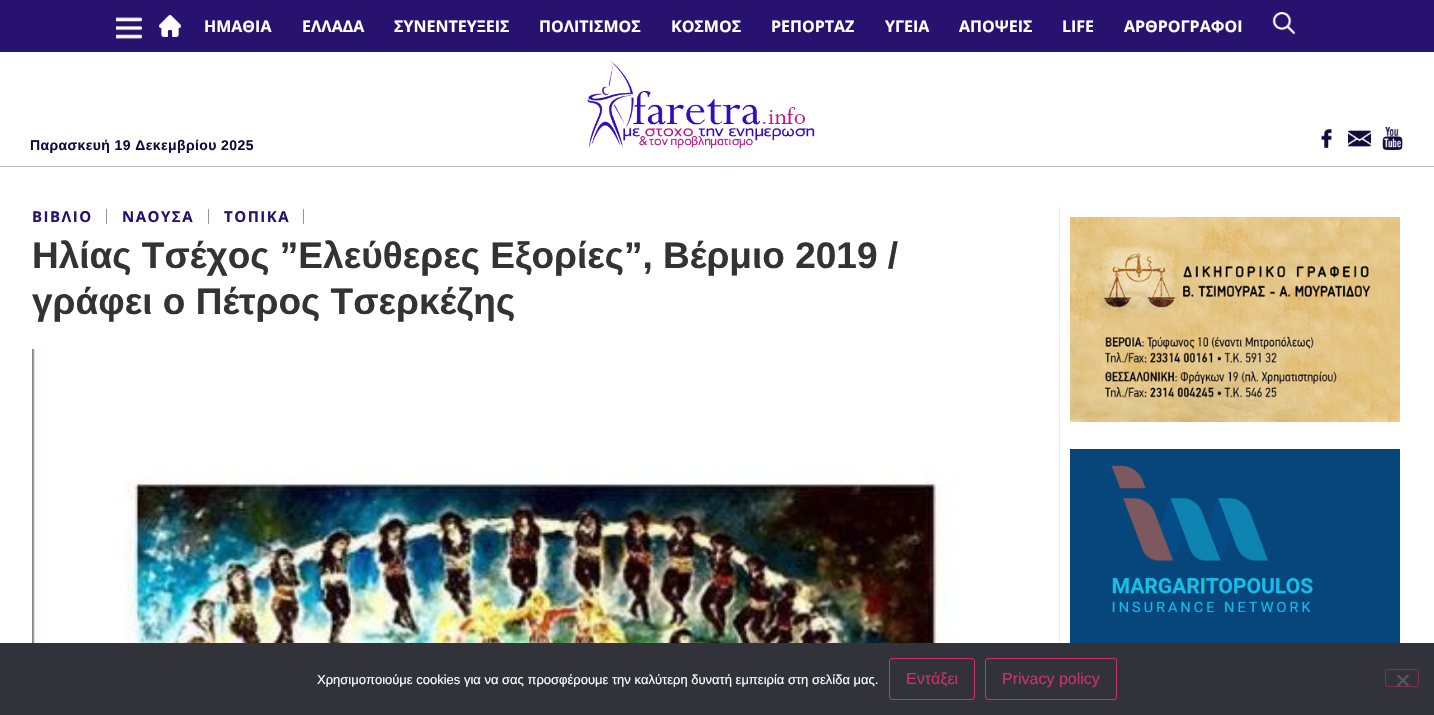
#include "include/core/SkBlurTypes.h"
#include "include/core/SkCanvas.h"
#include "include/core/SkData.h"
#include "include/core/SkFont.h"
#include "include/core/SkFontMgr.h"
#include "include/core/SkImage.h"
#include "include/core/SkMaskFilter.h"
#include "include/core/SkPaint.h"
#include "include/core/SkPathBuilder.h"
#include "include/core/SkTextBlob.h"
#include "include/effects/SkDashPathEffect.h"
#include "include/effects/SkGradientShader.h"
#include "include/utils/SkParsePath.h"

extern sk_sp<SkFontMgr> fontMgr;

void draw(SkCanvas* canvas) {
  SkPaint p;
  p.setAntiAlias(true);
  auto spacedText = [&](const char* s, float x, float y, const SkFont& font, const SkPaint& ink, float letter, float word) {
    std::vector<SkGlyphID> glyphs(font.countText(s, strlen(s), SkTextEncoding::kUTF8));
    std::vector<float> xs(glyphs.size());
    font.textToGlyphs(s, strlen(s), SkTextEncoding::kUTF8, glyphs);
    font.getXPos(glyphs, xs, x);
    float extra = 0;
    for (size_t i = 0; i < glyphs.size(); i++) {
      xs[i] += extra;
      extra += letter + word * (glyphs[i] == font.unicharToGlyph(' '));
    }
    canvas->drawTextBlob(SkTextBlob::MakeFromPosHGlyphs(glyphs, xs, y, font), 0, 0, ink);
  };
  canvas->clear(SK_ColorWHITE);
  p.setColor(SkColorSetRGB(40, 18, 112));
  canvas->drawRect(SkRect::MakeLTRB(0, 0, 1434, 52), p);
  canvas->drawImageRect(SkImages::DeferredFromEncodedData(SkData::MakeFromFileName("images/1.png")), SkRect::MakeLTRB(116, 17, 142, 39), SkSamplingOptions());
  canvas->drawImageRect(SkImages::DeferredFromEncodedData(SkData::MakeFromFileName("images/2.png")), SkRect::MakeLTRB(159, 15, 181, 37), SkSamplingOptions());
  canvas->drawImageRect(SkImages::DeferredFromEncodedData(SkData::MakeFromFileName("images/3.png")), SkRect::MakeLTRB(1272, 12, 1295, 34), SkSamplingOptions());
  p.setColor(SkColorSetRGB(189, 183, 208));
  canvas->drawRect(SkRect::MakeLTRB(0, 166, 1434, 167), p);
  canvas->drawImageRect(SkImages::DeferredFromEncodedData(SkData::MakeFromFileName("images/4.png")), SkRect::MakeLTRB(587, 61, 815, 149), SkSamplingOptions());
  canvas->drawImageRect(SkImages::DeferredFromEncodedData(SkData::MakeFromFileName("images/5.png")), SkRect::MakeLTRB(1321, 129, 1332, 148), SkSamplingOptions());
  canvas->drawImageRect(SkImages::DeferredFromEncodedData(SkData::MakeFromFileName("images/6.png")), SkRect::MakeLTRB(1348, 130, 1371, 147), SkSamplingOptions());
  canvas->drawImageRect(SkImages::DeferredFromEncodedData(SkData::MakeFromFileName("images/7.png")), SkRect::MakeLTRB(1382, 127, 1403, 150), SkSamplingOptions());
  p.setColor(SkColorSetRGB(234, 234, 234));
  canvas->drawRect(SkRect::MakeLTRB(1059, 207, 1060, 643), p);
  p.setColor(SkColorSetRGB(150, 150, 150));
  canvas->drawRect(SkRect::MakeLTRB(106, 209, 107, 224), p);
  canvas->drawRect(SkRect::MakeLTRB(208, 209, 209, 224), p);
  canvas->drawRect(SkRect::MakeLTRB(303, 209, 304, 224), p);
  canvas->drawImageRect(SkImages::DeferredFromEncodedData(SkData::MakeFromFileName("images/8.png")), SkRect::MakeLTRB(32, 349, 956, 643), SkSamplingOptions());
  canvas->drawImageRect(SkImages::DeferredFromEncodedData(SkData::MakeFromFileName("images/9.png")), SkRect::MakeLTRB(1070, 217, 1400, 422), SkSamplingOptions());
  canvas->drawImageRect(SkImages::DeferredFromEncodedData(SkData::MakeFromFileName("images/10.png")), SkRect::MakeLTRB(1070, 449, 1400, 643), SkSamplingOptions());
  p.setColor(SkColorSetRGB(50, 50, 58));
  canvas->drawRect(SkRect::MakeLTRB(0, 643, 1434, 715), p);
  p.setStyle(SkPaint::kStroke_Style);
  p.setStrokeWidth(1);
  p.setColor(SkColorSetRGB(204, 51, 102));
  canvas->drawRoundRect(SkRect::MakeLTRB(889.5f, 658.5f, 974.5f, 699.5f), 2.5f, 2.5f, p);
  canvas->drawRoundRect(SkRect::MakeLTRB(985.5f, 658.5f, 1116.5f, 699.5f), 2.5f, 2.5f, p);
  p.setColor(SkColorSetRGB(127, 51, 80));
  canvas->drawRoundRect(SkRect::MakeLTRB(1385.5f, 669.5f, 1418.5f, 686.5f), 2.5f, 2.5f, p);
  p.setStyle(SkPaint::kFill_Style);
  p.setColor(SkColorSetRGB(89, 89, 93));
  canvas->drawPath(SkPathBuilder().moveTo(1407.5f, 674.5f).lineTo(1409, 676).lineTo(1398.5f, 686.5f).lineTo(1397, 685).close().detach(), p);
  canvas->drawPath(SkPathBuilder().moveTo(1397, 676).lineTo(1398.5f, 674.5f).lineTo(1409, 685).lineTo(1407.5f, 686.5f).close().detach(), p);
  SkFont font1(fontMgr->matchFamilyStyle("Open Sans", SkFontStyle::Bold()), 16);
  font1.setSubpixel(true);
  p.setColor(SK_ColorWHITE);
  canvas->drawString("ΗΜΑΘΙΑ", 204, 32, font1, p);
  canvas->drawString("ΕΛΛΑΔΑ", 302, 32, font1, p);
  canvas->drawString("ΣΥΝΕΝΤΕΥΞΕΙΣ", 394, 32, font1, p);
  canvas->drawString("ΠΟΛΙΤΙΣΜΟΣ", 539, 32, font1, p);
  canvas->drawString("ΚΟΣΜΟΣ", 671, 32, font1, p);
  canvas->drawString("ΡΕΠΟΡΤΑΖ", 771, 32, font1, p);
  canvas->drawString("ΥΓΕΙΑ", 885, 32, font1, p);
  canvas->drawString("ΑΠΟΨΕΙΣ", 959, 32, font1, p);
  canvas->drawString("LIFE", 1062, 32, font1, p);
  canvas->drawString("ΑΡΘΡΟΓΡΑΦΟΙ", 1124, 32, font1, p);
  SkFont font2(fontMgr->matchFamilyStyle("Liberation Sans", SkFontStyle::Bold()), 14);
  font2.setSubpixel(true);
  p.setColor(SkColorSetRGB(22, 10, 61));
  spacedText("Παρασκευή 19 Δεκεμβρίου 2025", 30, 150, font2, p, 0.4f, 0);
  SkFont font3(fontMgr->matchFamilyStyle("Open Sans", SkFontStyle::Bold()), 15);
  font3.setSubpixel(true);
  p.setColor(SkColorSetRGB(40, 18, 112));
  spacedText("ΒΙΒΛΙΟ", 32, 222, font3, p, 1.5f, 0);
  spacedText("ΝΑΟΥΣΑ", 122, 222, font3, p, 1.5f, 0);
  spacedText("ΤΟΠΙΚΑ", 224, 222, font3, p, 1.5f, 0);
  SkFont font4(fontMgr->matchFamilyStyle("Liberation Sans", SkFontStyle::Bold()), 37);
  font4.setSubpixel(true);
  p.setColor(SkColorSetRGB(51, 51, 51));
  canvas->drawString("Ηλίας Τσέχος ”Ελεύθερες Εξορίες”, Βέρμιο 2019 /", 32, 268, font4, p);
  canvas->drawString("γράφει ο Πέτρος Τσερκέζης", 32, 314, font4, p);
  SkFont font5(fontMgr->matchFamilyStyle("Liberation Sans", SkFontStyle::Normal()), 13);
  font5.setSubpixel(true);
  p.setColor(SK_ColorWHITE);
  canvas->drawString("Χρησιμοποιούμε cookies για να σας προσφέρουμε την καλύτερη δυνατή εμπειρία στη σελίδα μας.", 317, 684, font5, p);
  SkFont font6(fontMgr->matchFamilyStyle("Liberation Sans", SkFontStyle::Normal()), 16);
  font6.setSubpixel(true);
  p.setColor(SkColorSetRGB(204, 51, 102));
  canvas->drawString("Εντάξει", 906, 684, font6, p);
  canvas->drawString("Privacy policy", 1002, 684, font6, p);
}
